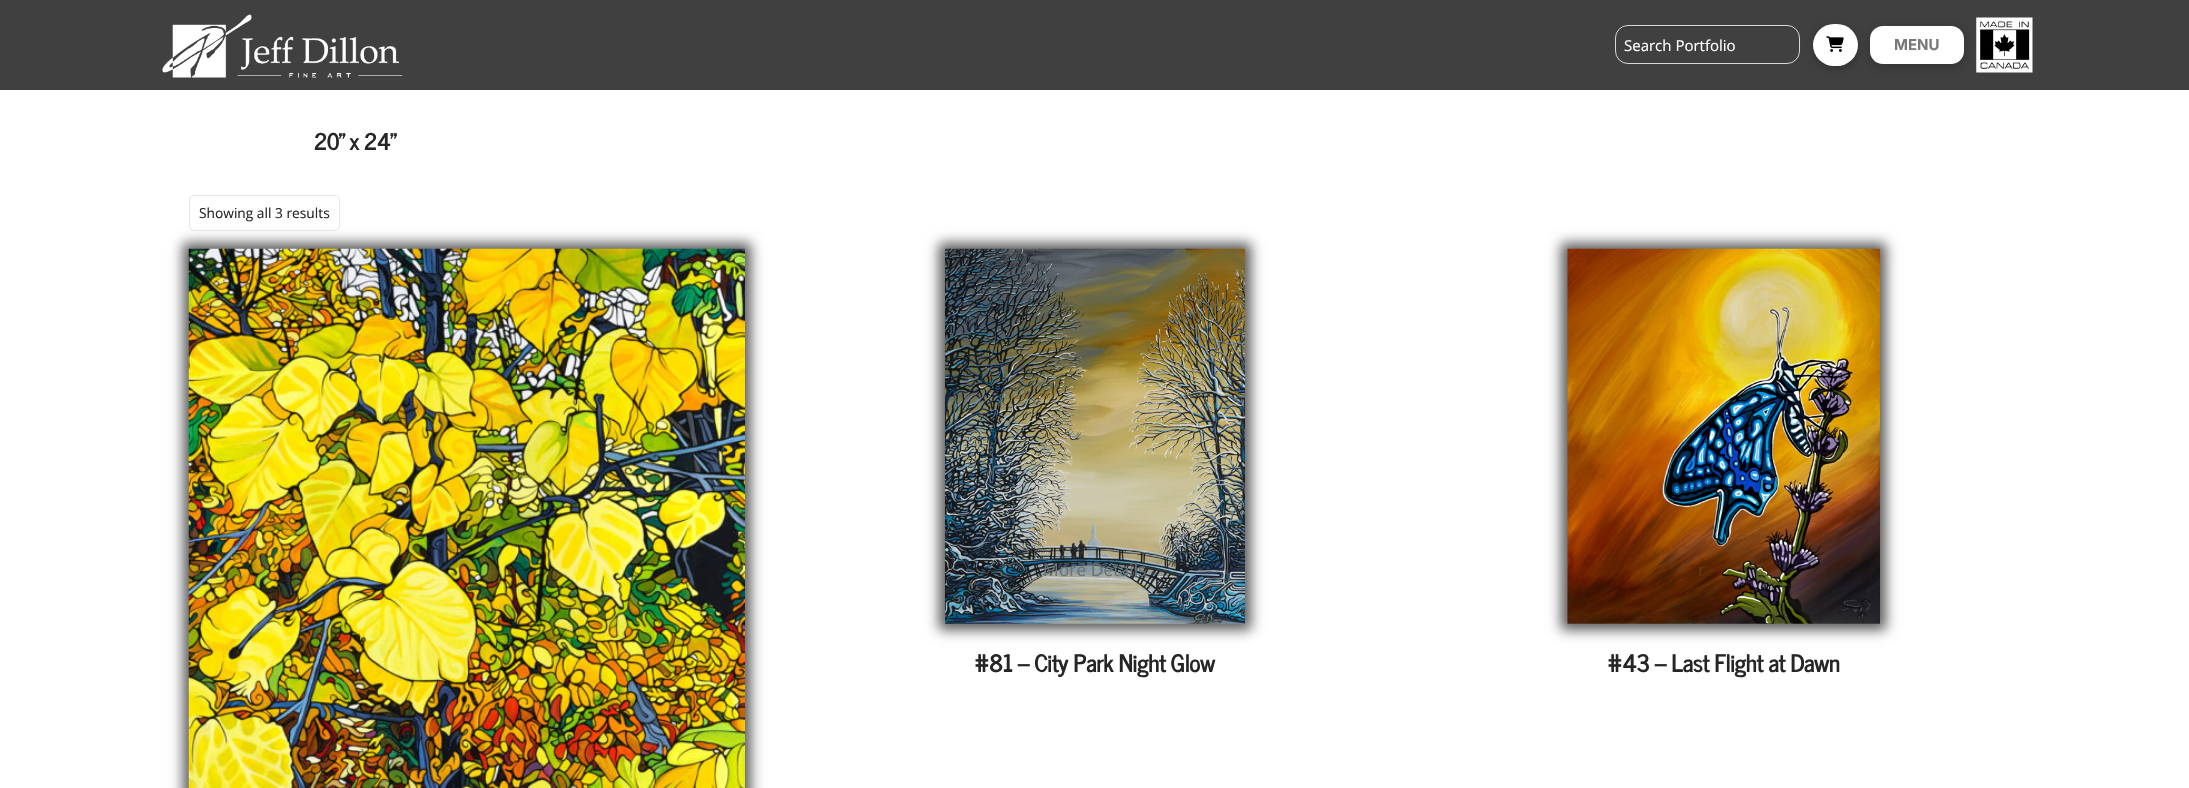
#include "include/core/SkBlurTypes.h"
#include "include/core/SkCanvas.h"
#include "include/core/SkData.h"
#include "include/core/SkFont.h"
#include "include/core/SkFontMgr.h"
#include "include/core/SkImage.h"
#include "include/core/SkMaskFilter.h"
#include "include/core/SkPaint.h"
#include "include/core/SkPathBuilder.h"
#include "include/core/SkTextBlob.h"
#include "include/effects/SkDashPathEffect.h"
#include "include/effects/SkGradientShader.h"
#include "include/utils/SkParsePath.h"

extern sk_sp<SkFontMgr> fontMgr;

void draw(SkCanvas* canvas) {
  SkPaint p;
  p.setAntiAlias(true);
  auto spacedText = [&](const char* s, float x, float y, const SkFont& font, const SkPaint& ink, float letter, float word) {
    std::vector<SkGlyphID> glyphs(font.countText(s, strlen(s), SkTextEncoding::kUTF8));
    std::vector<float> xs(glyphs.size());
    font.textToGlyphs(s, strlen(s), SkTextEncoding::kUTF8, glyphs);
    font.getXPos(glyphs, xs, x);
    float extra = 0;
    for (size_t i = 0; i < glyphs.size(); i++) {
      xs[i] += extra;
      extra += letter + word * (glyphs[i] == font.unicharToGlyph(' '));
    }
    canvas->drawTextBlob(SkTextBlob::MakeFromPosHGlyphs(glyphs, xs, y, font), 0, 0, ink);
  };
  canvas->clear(SK_ColorWHITE);
  p.setColor(SkColorSetRGB(64, 64, 64));
  canvas->drawRect(SkRect::MakeLTRB(0, 0, 2189, 90), p);
  canvas->drawImageRect(SkImages::DeferredFromEncodedData(SkData::MakeFromFileName("images/1.png")), SkRect::MakeLTRB(162, 14, 403, 78), SkSamplingOptions());
  p.setColor(SkColorSetRGB(59, 59, 59));
  canvas->drawPath(SkPathBuilder().moveTo(1628, 28).cubicTo(1621, 28, 1616, 33, 1616, 39).lineTo(1616, 37).cubicTo(1616, 31, 1621, 26, 1627, 26).lineTo(1788, 26).cubicTo(1794, 26, 1799, 31, 1799, 37).lineTo(1799, 39).cubicTo(1799, 33, 1794, 28, 1788, 28).close().detach(), p);
  p.setStyle(SkPaint::kStroke_Style);
  p.setStrokeWidth(1);
  p.setColor(SkColorSetRGB(216, 216, 216));
  canvas->drawRoundRect(SkRect::MakeLTRB(1615.5f, 25.5f, 1799.5f, 63.5f), 12.5f, 12.5f, p);
  p.setStyle(SkPaint::kFill_Style);
  p.setColor(SkColorSetARGB(64, 0, 0, 0));
  p.setMaskFilter(SkMaskFilter::MakeBlur(kNormal_SkBlurStyle, 4));
  canvas->drawRoundRect(SkRect::MakeLTRB(1813, 26, 1858, 69), 21.5f, 21.5f, p);
  p.setMaskFilter(nullptr);
  p.setColor(SK_ColorWHITE);
  canvas->drawRoundRect(SkRect::MakeLTRB(1813, 24, 1858, 66), 21, 21, p);
  canvas->drawImageRect(SkImages::DeferredFromEncodedData(SkData::MakeFromFileName("images/2.png")), SkRect::MakeLTRB(1826, 36, 1844, 52), SkSamplingOptions());
  canvas->drawImageRect(SkImages::DeferredFromEncodedData(SkData::MakeFromFileName("images/3.png")), SkRect::MakeLTRB(1976, 17, 2033, 73), SkSamplingOptions());
  p.setColor(SkColorSetARGB(64, 0, 0, 0));
  p.setMaskFilter(SkMaskFilter::MakeBlur(kNormal_SkBlurStyle, 6));
  canvas->drawRoundRect(SkRect::MakeLTRB(1870, 29, 1964, 66), 13, 13, p);
  p.setMaskFilter(nullptr);
  p.setColor(SK_ColorWHITE);
  canvas->drawRoundRect(SkRect::MakeLTRB(1870, 26, 1964, 64), 13, 13, p);
  p.setStyle(SkPaint::kStroke_Style);
  p.setColor(SkColorSetRGB(230, 230, 230));
  canvas->drawRoundRect(SkRect::MakeLTRB(189.5f, 195.5f, 339.5f, 230.5f), 4.5f, 4.5f, p);
  p.setStyle(SkPaint::kFill_Style);
  p.setColor(SkColorSetRGB(91, 91, 91));
  p.setMaskFilter(SkMaskFilter::MakeBlur(kNormal_SkBlurStyle, 6));
  canvas->drawRect(SkRect::MakeLTRB(183, 243, 751, 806), p);
  p.setMaskFilter(nullptr);
  canvas->drawImageRect(SkImages::DeferredFromEncodedData(SkData::MakeFromFileName("images/4.png")), SkRect::MakeLTRB(188, 248, 745, 788), SkSamplingOptions());
  p.setMaskFilter(SkMaskFilter::MakeBlur(kNormal_SkBlurStyle, 6));
  canvas->drawRect(SkRect::MakeLTRB(939, 243, 1251, 630), p);
  p.setMaskFilter(nullptr);
  canvas->drawImageRect(SkImages::DeferredFromEncodedData(SkData::MakeFromFileName("images/5.png")), SkRect::MakeLTRB(945, 248, 1245, 624), SkSamplingOptions());
  p.setMaskFilter(SkMaskFilter::MakeBlur(kNormal_SkBlurStyle, 6));
  canvas->drawRect(SkRect::MakeLTRB(1561, 243, 1886, 630), p);
  p.setMaskFilter(nullptr);
  canvas->drawImageRect(SkImages::DeferredFromEncodedData(SkData::MakeFromFileName("images/6.png")), SkRect::MakeLTRB(1567, 248, 1880, 624), SkSamplingOptions());
  SkFont font1(fontMgr->matchFamilyStyle("Open Sans", SkFontStyle::Normal()), 15);
  font1.setSubpixel(true);
  p.setColor(SK_ColorWHITE);
  canvas->drawString("Search Portfolio", 1624, 51, font1, p);
  SkFont font2(fontMgr->matchFamilyStyle("Inter", SkFontStyle::Bold()), 15);
  font2.setSubpixel(true);
  p.setColor(SkColorSetRGB(121, 121, 121));
  canvas->drawString("MENU", 1894, 50, font2, p);
  SkFont font3(fontMgr->matchFamilyStyle("News Cycle", SkFontStyle::Bold()), 23);
  font3.setSubpixel(true);
  p.setColor(SkColorSetRGB(38, 38, 38));
  spacedText("20\" x 24\"", 314, 150, font3, p, -0.75f, 0);
  SkFont font4(fontMgr->matchFamilyStyle("Open Sans", SkFontStyle::Normal()), 13.75f);
  font4.setSubpixel(true);
  canvas->drawString("Showing all 3 results", 199, 218, font4, p);
  SkFont font5(fontMgr->matchFamilyStyle("Open Sans", SkFontStyle::Normal()), 17.5f);
  font5.setSubpixel(true);
  p.setColor(SkColorSetRGB(105, 115, 117));
  canvas->drawString("More Details", 1043, 576, font5, p);
  SkFont font6(fontMgr->matchFamilyStyle("News Cycle", SkFontStyle::Bold()), 24);
  font6.setSubpixel(true);
  p.setColor(SkColorSetRGB(38, 38, 38));
  spacedText("#81 – City Park Night Glow", 974, 672, font6, p, -0.75f, 0);
  p.setColor(SkColorSetRGB(94, 58, 22));
  canvas->drawString("r", 1698, 576, font5, p);
  p.setColor(SkColorSetRGB(38, 38, 38));
  spacedText("#43 – Last Flight at Dawn", 1607, 672, font6, p, -0.75f, 0);
}
